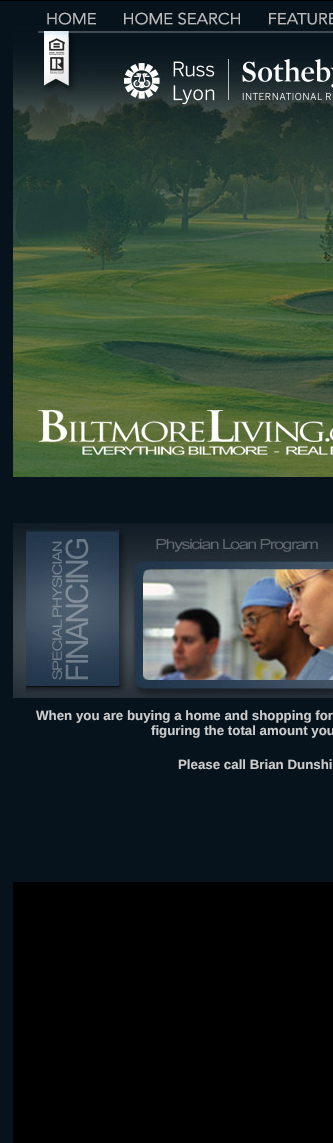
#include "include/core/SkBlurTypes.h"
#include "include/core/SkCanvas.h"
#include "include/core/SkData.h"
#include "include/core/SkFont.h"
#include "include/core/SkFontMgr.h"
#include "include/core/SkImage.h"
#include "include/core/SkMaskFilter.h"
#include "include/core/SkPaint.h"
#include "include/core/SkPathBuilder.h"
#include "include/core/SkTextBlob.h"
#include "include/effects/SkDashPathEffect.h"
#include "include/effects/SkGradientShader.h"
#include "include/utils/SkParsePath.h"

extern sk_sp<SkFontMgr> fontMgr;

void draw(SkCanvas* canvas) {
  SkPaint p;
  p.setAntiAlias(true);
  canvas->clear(SK_ColorBLACK);
  p.setColor(SkColorSetRGB(6, 19, 28));
  canvas->drawRect(SkRect::MakeLTRB(0, 1, 333, 1143), p);
  canvas->drawImageRect(SkImages::DeferredFromEncodedData(SkData::MakeFromFileName("images/1.png")), SkRect::MakeLTRB(13, 9, 333, 477), SkSamplingOptions());
  canvas->drawImageRect(SkImages::DeferredFromEncodedData(SkData::MakeFromFileName("images/2.png")), SkRect::MakeLTRB(13, 523, 333, 698), SkSamplingOptions());
  p.setColor(SK_ColorBLACK);
  canvas->drawRect(SkRect::MakeLTRB(13, 882, 333, 1143), p);
  SkFont font1(fontMgr->matchFamilyStyle("Liberation Sans", SkFontStyle::Bold()), 13.3f);
  font1.setSubpixel(true);
  p.setColor(SkColorSetRGB(204, 204, 204));
  canvas->drawString("When you are buying a home and shopping for", 36, 720, font1, p);
  canvas->drawString("figuring the total amount you", 151, 735, font1, p);
  canvas->drawString("Please call Brian Dunshi", 178, 769, font1, p);
}
